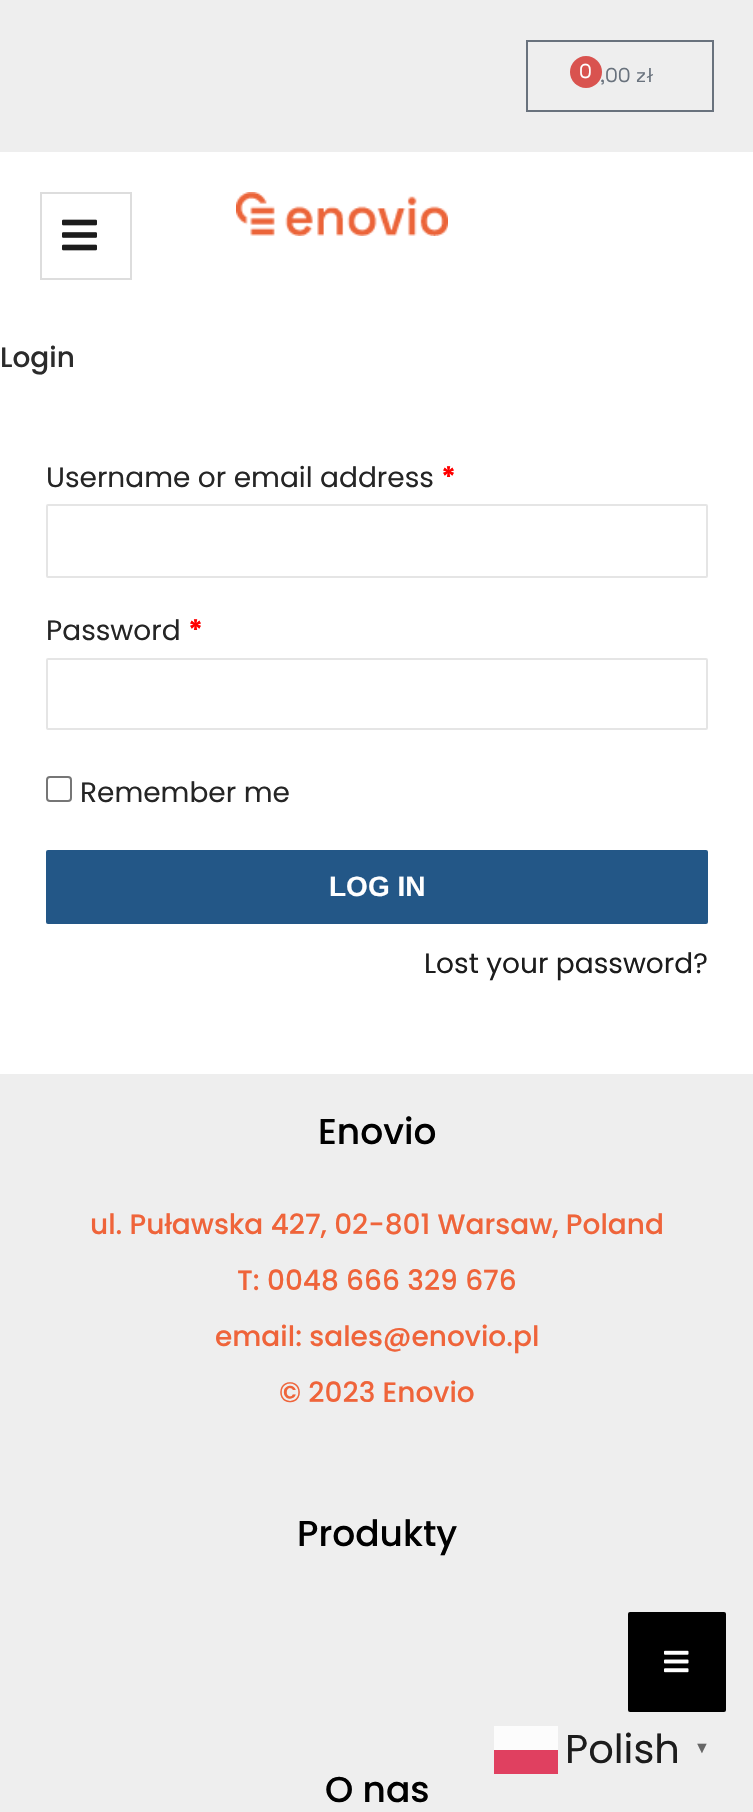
#include "include/core/SkBlurTypes.h"
#include "include/core/SkCanvas.h"
#include "include/core/SkData.h"
#include "include/core/SkFont.h"
#include "include/core/SkFontMgr.h"
#include "include/core/SkImage.h"
#include "include/core/SkMaskFilter.h"
#include "include/core/SkPaint.h"
#include "include/core/SkPathBuilder.h"
#include "include/core/SkTextBlob.h"
#include "include/effects/SkDashPathEffect.h"
#include "include/effects/SkGradientShader.h"
#include "include/utils/SkParsePath.h"

extern sk_sp<SkFontMgr> fontMgr;

void draw(SkCanvas* canvas) {
  SkPaint p;
  p.setAntiAlias(true);
  canvas->clear(SK_ColorWHITE);
  p.setColor(SkColorSetRGB(238, 238, 238));
  canvas->drawRect(SkRect::MakeLTRB(0, 0, 753, 152), p);
  p.setStyle(SkPaint::kStroke_Style);
  p.setStrokeWidth(2);
  p.setColor(SkColorSetRGB(105, 114, 125));
  canvas->drawRect(SkRect::MakeLTRB(527, 41, 713, 111), p);
  p.setColor(SkColorSetRGB(221, 221, 221));
  canvas->drawRect(SkRect::MakeLTRB(41, 193, 131, 279), p);
  canvas->drawImageRect(SkImages::DeferredFromEncodedData(SkData::MakeFromFileName("images/1.png")), SkRect::MakeLTRB(62, 219, 97, 251), SkSamplingOptions());
  canvas->drawImageRect(SkImages::DeferredFromEncodedData(SkData::MakeFromFileName("images/2.png")), SkRect::MakeLTRB(236, 192, 448, 236), SkSamplingOptions());
  p.setColor(SkColorSetRGB(229, 229, 229));
  canvas->drawRoundRect(SkRect::MakeLTRB(47, 505, 707, 577), 1, 1, p);
  canvas->drawRoundRect(SkRect::MakeLTRB(47, 659, 707, 729), 1, 1, p);
  p.setColor(SkColorSetRGB(118, 118, 118));
  canvas->drawRoundRect(SkRect::MakeLTRB(47, 777, 71, 801), 3, 3, p);
  p.setStyle(SkPaint::kFill_Style);
  p.setColor(SkColorSetRGB(35, 87, 135));
  canvas->drawRoundRect(SkRect::MakeLTRB(46, 850, 708, 924), 2, 2, p);
  p.setColor(SkColorSetRGB(238, 238, 238));
  canvas->drawRect(SkRect::MakeLTRB(0, 1074, 753, 1812), p);
  p.setColor(SK_ColorBLACK);
  canvas->drawRoundRect(SkRect::MakeLTRB(628, 1612, 726, 1712), 2, 2, p);
  canvas->drawImageRect(SkImages::DeferredFromEncodedData(SkData::MakeFromFileName("images/3.png")), SkRect::MakeLTRB(664, 1650, 689, 1673), SkSamplingOptions());
  p.setColor(SkColorSetRGB(252, 252, 252));
  canvas->drawRect(SkRect::MakeLTRB(494, 1726, 558, 1750), p);
  p.setColor(SkColorSetRGB(224, 64, 96));
  canvas->drawRect(SkRect::MakeLTRB(494, 1750, 558, 1774), p);
  SkFont font1(fontMgr->matchFamilyStyle("Space Grotesk", SkFontStyle::Normal()), 20);
  font1.setSubpixel(true);
  p.setColor(SkColorSetRGB(105, 114, 125));
  canvas->drawString(",00 zł", 600, 82, font1, p);
  p.setColor(SkColorSetRGB(217, 83, 79));
  canvas->drawCircle(586, 72, 16, p);
  p.setColor(SK_ColorWHITE);
  canvas->drawString("0", 579, 78, font1, p);
  SkFont font2(fontMgr->matchFamilyStyle("Poppins", SkFontStyle(500, SkFontStyle::kNormal_Width, SkFontStyle::kUpright_Slant)), 28);
  font2.setSubpixel(true);
  p.setColor(SkColorSetRGB(43, 43, 43));
  canvas->drawString("Login", 0, 367, font2, p);
  SkFont font3(fontMgr->matchFamilyStyle("Poppins", SkFontStyle::Normal()), 28);
  font3.setSubpixel(true);
  p.setColor(SkColorSetRGB(37, 37, 37));
  canvas->drawString("Username or email address", 46, 487, font3, p);
  SkFont font4(fontMgr->matchFamilyStyle("Poppins", SkFontStyle::Bold()), 28);
  font4.setSubpixel(true);
  p.setColor(SkColorSetRGB(255, 0, 0));
  canvas->drawString("*", 441, 487, font4, p);
  p.setColor(SkColorSetRGB(37, 37, 37));
  canvas->drawString("Password", 46, 640, font3, p);
  p.setColor(SkColorSetRGB(255, 0, 0));
  canvas->drawString("*", 188, 640, font4, p);
  p.setColor(SkColorSetRGB(37, 37, 37));
  canvas->drawString("Remember me", 80, 802, font3, p);
  SkFont font5(fontMgr->matchFamilyStyle("Liberation Sans", SkFontStyle::Bold()), 28);
  font5.setSubpixel(true);
  p.setColor(SK_ColorWHITE);
  canvas->drawString("LOG IN", 329, 896, font5, p);
  p.setColor(SkColorSetRGB(28, 28, 28));
  canvas->drawString("Lost your password?", 424, 973, font3, p);
  SkFont font6(fontMgr->matchFamilyStyle("Poppins", SkFontStyle(500, SkFontStyle::kNormal_Width, SkFontStyle::kUpright_Slant)), 36);
  font6.setSubpixel(true);
  p.setColor(SK_ColorBLACK);
  canvas->drawString("Enovio", 318, 1144, font6, p);
  p.setColor(SkColorSetRGB(239, 100, 58));
  canvas->drawString("ul. Puławska 427, 02-801 Warsaw, Poland", 90, 1234, font2, p);
  canvas->drawString("T: 0048 666 329 676", 237, 1290, font2, p);
  canvas->drawString("email: sales@enovio.pl", 215, 1346, font2, p);
  canvas->drawString("© 2023 Enovio", 279, 1402, font2, p);
  p.setColor(SK_ColorBLACK);
  canvas->drawString("Produkty", 297, 1546, font6, p);
  canvas->drawString("O nas", 325, 1802, font6, p);
  SkFont font7(fontMgr->matchFamilyStyle("Poppins", SkFontStyle::Normal()), 40);
  font7.setSubpixel(true);
  p.setColor(SkColorSetRGB(28, 28, 28));
  canvas->drawString("Polish", 565, 1763, font7, p);
  SkFont font8(fontMgr->matchFamilyStyle("Liberation Serif", SkFontStyle::Bold()), 16);
  font8.setSubpixel(true);
  p.setColor(SkColorSetRGB(102, 102, 102));
  canvas->drawString("▼", 694, 1753, font8, p);
}
